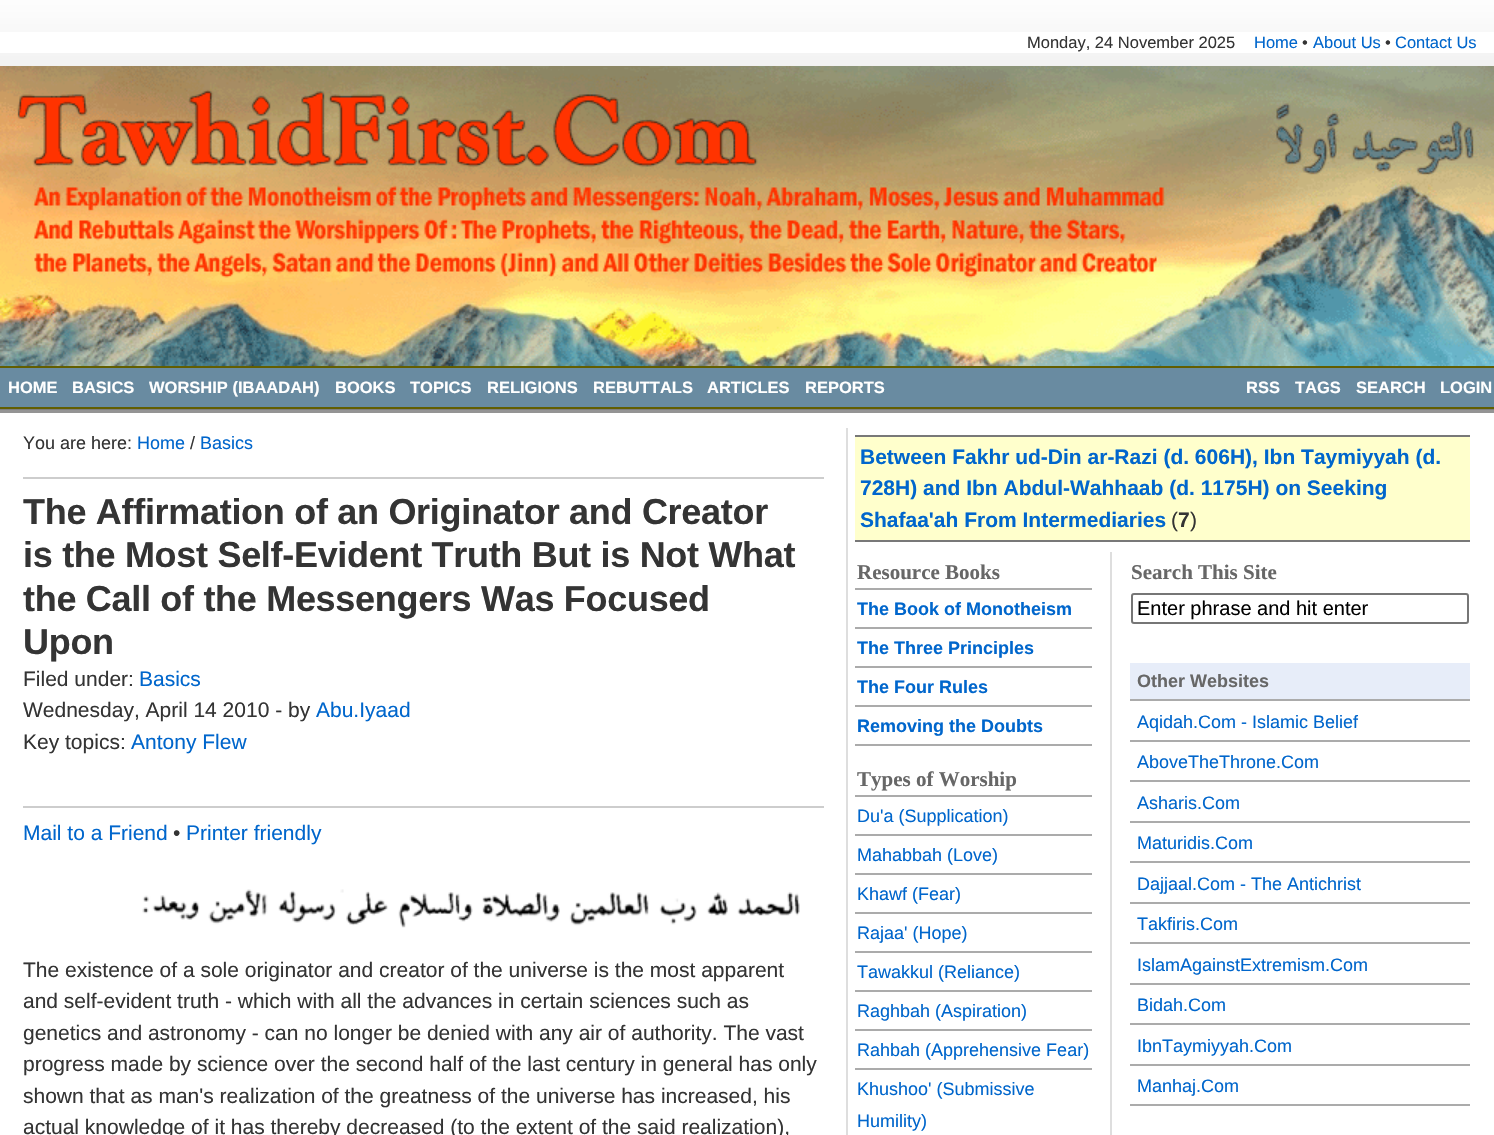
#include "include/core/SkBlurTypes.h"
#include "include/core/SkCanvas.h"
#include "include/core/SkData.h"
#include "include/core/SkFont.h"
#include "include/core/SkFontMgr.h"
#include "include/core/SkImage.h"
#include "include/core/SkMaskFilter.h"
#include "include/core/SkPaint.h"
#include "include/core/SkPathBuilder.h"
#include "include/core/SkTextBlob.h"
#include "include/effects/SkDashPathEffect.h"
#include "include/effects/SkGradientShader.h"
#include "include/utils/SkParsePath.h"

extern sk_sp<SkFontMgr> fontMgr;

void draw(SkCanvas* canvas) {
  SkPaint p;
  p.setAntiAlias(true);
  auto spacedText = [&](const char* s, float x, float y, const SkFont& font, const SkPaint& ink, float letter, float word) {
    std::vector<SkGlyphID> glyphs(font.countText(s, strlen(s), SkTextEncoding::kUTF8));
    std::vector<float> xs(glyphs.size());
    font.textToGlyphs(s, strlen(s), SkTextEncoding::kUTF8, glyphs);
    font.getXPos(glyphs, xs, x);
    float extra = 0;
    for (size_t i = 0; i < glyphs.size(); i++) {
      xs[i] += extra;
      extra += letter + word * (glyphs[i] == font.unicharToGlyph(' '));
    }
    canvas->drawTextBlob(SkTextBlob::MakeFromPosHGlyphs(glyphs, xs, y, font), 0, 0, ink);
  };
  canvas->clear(SK_ColorWHITE);
  canvas->drawImageRect(SkImages::DeferredFromEncodedData(SkData::MakeFromFileName("images/1.png")), SkRect::MakeLTRB(0, 0, 1494, 413), SkSamplingOptions());
  p.setColor(SK_ColorWHITE);
  canvas->drawRect(SkRect::MakeLTRB(0, 32, 1494, 53), p);
  canvas->drawImageRect(SkImages::DeferredFromEncodedData(SkData::MakeFromFileName("images/2.png")), SkRect::MakeLTRB(0, 66, 1494, 366), SkSamplingOptions());
  p.setColor(SkColorSetRGB(105, 139, 161));
  canvas->drawRect(SkRect::MakeLTRB(0, 368, 1494, 407), p);
  p.setColor(SkColorSetRGB(98, 94, 0));
  canvas->drawRect(SkRect::MakeLTRB(0, 366, 1494, 368), p);
  canvas->drawRect(SkRect::MakeLTRB(0, 407, 1494, 409), p);
  p.setColor(SkColorSetRGB(128, 128, 128));
  canvas->drawRect(SkRect::MakeLTRB(0, 409, 1494, 410), p);
  p.setColor(SkColorSetRGB(205, 205, 205));
  canvas->drawRect(SkRect::MakeLTRB(23, 477, 824, 479), p);
  canvas->drawRect(SkRect::MakeLTRB(23, 806, 824, 808), p);
  canvas->drawImageRect(SkImages::DeferredFromEncodedData(SkData::MakeFromFileName("images/3.png")), SkRect::MakeLTRB(142, 889, 800, 928), SkSamplingOptions());
  p.setColor(SkColorSetRGB(222, 222, 222));
  canvas->drawRect(SkRect::MakeLTRB(846, 428, 848, 1135), p);
  p.setColor(SkColorSetRGB(255, 255, 204));
  canvas->drawRect(SkRect::MakeLTRB(855, 437, 1470, 540), p);
  p.setColor(SkColorSetRGB(120, 120, 120));
  canvas->drawRect(SkRect::MakeLTRB(855, 435, 1470, 437), p);
  canvas->drawRect(SkRect::MakeLTRB(855, 540, 1470, 542), p);
  p.setColor(SkColorSetRGB(171, 171, 171));
  canvas->drawRect(SkRect::MakeLTRB(855, 588, 1092, 590), p);
  canvas->drawRect(SkRect::MakeLTRB(855, 627, 1092, 629), p);
  canvas->drawRect(SkRect::MakeLTRB(855, 666, 1092, 668), p);
  canvas->drawRect(SkRect::MakeLTRB(855, 705, 1092, 707), p);
  canvas->drawRect(SkRect::MakeLTRB(855, 744, 1092, 746), p);
  canvas->drawRect(SkRect::MakeLTRB(855, 795, 1092, 797), p);
  canvas->drawRect(SkRect::MakeLTRB(855, 834, 1092, 836), p);
  canvas->drawRect(SkRect::MakeLTRB(855, 873, 1092, 875), p);
  canvas->drawRect(SkRect::MakeLTRB(855, 912, 1092, 914), p);
  canvas->drawRect(SkRect::MakeLTRB(855, 951, 1092, 953), p);
  canvas->drawRect(SkRect::MakeLTRB(855, 990, 1092, 992), p);
  canvas->drawRect(SkRect::MakeLTRB(855, 1029, 1092, 1031), p);
  canvas->drawRect(SkRect::MakeLTRB(855, 1068, 1092, 1070), p);
  p.setColor(SkColorSetRGB(222, 222, 222));
  canvas->drawRect(SkRect::MakeLTRB(1110, 552, 1112, 1135), p);
  p.setStyle(SkPaint::kStroke_Style);
  p.setStrokeWidth(2);
  p.setColor(SkColorSetRGB(118, 118, 118));
  canvas->drawRoundRect(SkRect::MakeLTRB(1132, 594, 1468, 623), 2, 2, p);
  p.setStyle(SkPaint::kFill_Style);
  p.setColor(SkColorSetRGB(231, 237, 249));
  canvas->drawRect(SkRect::MakeLTRB(1130, 663, 1470, 699), p);
  p.setColor(SkColorSetRGB(171, 171, 171));
  canvas->drawRect(SkRect::MakeLTRB(1130, 699, 1470, 701), p);
  canvas->drawRect(SkRect::MakeLTRB(1130, 740, 1470, 742), p);
  canvas->drawRect(SkRect::MakeLTRB(1130, 780, 1470, 782), p);
  canvas->drawRect(SkRect::MakeLTRB(1130, 821, 1470, 823), p);
  canvas->drawRect(SkRect::MakeLTRB(1130, 861, 1470, 863), p);
  canvas->drawRect(SkRect::MakeLTRB(1130, 902, 1470, 904), p);
  canvas->drawRect(SkRect::MakeLTRB(1130, 942, 1470, 944), p);
  canvas->drawRect(SkRect::MakeLTRB(1130, 983, 1470, 985), p);
  canvas->drawRect(SkRect::MakeLTRB(1130, 1023, 1470, 1025), p);
  canvas->drawRect(SkRect::MakeLTRB(1130, 1064, 1470, 1066), p);
  canvas->drawRect(SkRect::MakeLTRB(1130, 1104, 1470, 1106), p);
  SkFont font1(fontMgr->matchFamilyStyle("Liberation Sans", SkFontStyle::Normal()), 16.5f);
  font1.setSubpixel(true);
  p.setColor(SkColorSetRGB(52, 52, 52));
  canvas->drawString("Monday, 24 November 2025", 1027, 48, font1, p);
  p.setColor(SkColorSetRGB(0, 102, 204));
  canvas->drawString("Home", 1254, 48, font1, p);
  p.setColor(SkColorSetRGB(52, 52, 52));
  canvas->drawString("•", 1302, 48, font1, p);
  p.setColor(SkColorSetRGB(0, 102, 204));
  canvas->drawString("About Us", 1313, 48, font1, p);
  p.setColor(SkColorSetRGB(52, 52, 52));
  canvas->drawString("•", 1385, 48, font1, p);
  p.setColor(SkColorSetRGB(0, 102, 204));
  canvas->drawString("Contact Us", 1395, 48, font1, p);
  SkFont font2(fontMgr->matchFamilyStyle("Liberation Sans", SkFontStyle::Bold()), 16.5f);
  font2.setSubpixel(true);
  p.setColor(SK_ColorWHITE);
  canvas->drawString("HOME", 8, 393, font2, p);
  canvas->drawString("BASICS", 72, 393, font2, p);
  canvas->drawString("WORSHIP (IBAADAH)", 149, 393, font2, p);
  canvas->drawString("BOOKS", 335, 393, font2, p);
  canvas->drawString("TOPICS", 410, 393, font2, p);
  canvas->drawString("RELIGIONS", 487, 393, font2, p);
  canvas->drawString("REBUTTALS", 593, 393, font2, p);
  canvas->drawString("ARTICLES", 707, 393, font2, p);
  canvas->drawString("REPORTS", 805, 393, font2, p);
  canvas->drawString("RSS", 1246, 393, font2, p);
  canvas->drawString("TAGS", 1295, 393, font2, p);
  canvas->drawString("SEARCH", 1356, 393, font2, p);
  canvas->drawString("LOGIN", 1440, 393, font2, p);
  SkFont font3(fontMgr->matchFamilyStyle("Liberation Sans", SkFontStyle::Normal()), 18);
  font3.setSubpixel(true);
  p.setColor(SkColorSetRGB(52, 52, 52));
  canvas->drawString("You are here:", 23, 449, font3, p);
  p.setColor(SkColorSetRGB(0, 102, 204));
  canvas->drawString("Home", 137, 449, font3, p);
  p.setColor(SkColorSetRGB(52, 52, 52));
  canvas->drawString("/", 190, 449, font3, p);
  p.setColor(SkColorSetRGB(0, 102, 204));
  canvas->drawString("Basics", 200, 449, font3, p);
  SkFont font4(fontMgr->matchFamilyStyle("Liberation Sans", SkFontStyle::Bold()), 36);
  font4.setSubpixel(true);
  p.setColor(SkColorSetRGB(52, 52, 52));
  spacedText("The Affirmation of an Originator and Creator", 23, 524, font4, p, -0.3f, 0);
  spacedText("is the Most Self-Evident Truth But is Not What", 23, 567, font4, p, -0.3f, 0);
  spacedText("the Call of the Messengers Was Focused", 23, 611, font4, p, -0.3f, 0);
  spacedText("Upon", 23, 654, font4, p, -0.3f, 0);
  SkFont font5(fontMgr->matchFamilyStyle("Liberation Sans", SkFontStyle::Normal()), 21);
  font5.setSubpixel(true);
  canvas->drawString("Filed under:", 23, 686, font5, p);
  p.setColor(SkColorSetRGB(0, 102, 204));
  canvas->drawString("Basics", 139, 686, font5, p);
  p.setColor(SkColorSetRGB(52, 52, 52));
  canvas->drawString("Wednesday, April 14 2010 - by", 23, 717, font5, p);
  p.setColor(SkColorSetRGB(0, 102, 204));
  canvas->drawString("Abu.Iyaad", 316, 717, font5, p);
  p.setColor(SkColorSetRGB(52, 52, 52));
  canvas->drawString("Key topics:", 23, 749, font5, p);
  p.setColor(SkColorSetRGB(0, 102, 204));
  canvas->drawString("Antony Flew", 131, 749, font5, p);
  canvas->drawString("Mail to a Friend", 23, 840, font5, p);
  p.setColor(SkColorSetRGB(52, 52, 52));
  canvas->drawString("•", 173, 840, font5, p);
  p.setColor(SkColorSetRGB(0, 102, 204));
  canvas->drawString("Printer friendly", 186, 840, font5, p);
  p.setColor(SkColorSetRGB(52, 52, 52));
  canvas->drawString("The existence of a sole originator and creator of the universe is the most apparent", 23, 977, font5, p);
  canvas->drawString("and self-evident truth - which with all the advances in certain sciences such as", 23, 1008, font5, p);
  canvas->drawString("genetics and astronomy - can no longer be denied with any air of authority. The vast", 23, 1040, font5, p);
  canvas->drawString("progress made by science over the second half of the last century in general has only", 23, 1071, font5, p);
  canvas->drawString("shown that as man's realization of the greatness of the universe has increased, his", 23, 1103, font5, p);
  canvas->drawString("actual knowledge of it has thereby decreased (to the extent of the said realization),", 23, 1134, font5, p);
  SkFont font6(fontMgr->matchFamilyStyle("Liberation Sans", SkFontStyle::Bold()), 21);
  font6.setSubpixel(true);
  p.setColor(SkColorSetRGB(0, 102, 204));
  canvas->drawString("Between Fakhr ud-Din ar-Razi (d. 606H), Ibn Taymiyyah (d.", 860, 464, font6, p);
  canvas->drawString("728H) and Ibn Abdul-Wahhaab (d. 1175H) on Seeking", 860, 495, font6, p);
  canvas->drawString("Shafaa'ah From Intermediaries", 860, 527, font6, p);
  p.setColor(SkColorSetRGB(52, 52, 52));
  canvas->drawString("(", 1171, 527, font5, p);
  canvas->drawString("7", 1178, 527, font6, p);
  canvas->drawString(")", 1190, 527, font5, p);
  SkFont font7(fontMgr->matchFamilyStyle("Liberation Serif", SkFontStyle::Bold()), 21);
  font7.setSubpixel(true);
  p.setColor(SkColorSetRGB(103, 103, 103));
  canvas->drawString("Resource Books", 857, 579, font7, p);
  SkFont font8(fontMgr->matchFamilyStyle("Liberation Sans", SkFontStyle::Bold()), 18);
  font8.setSubpixel(true);
  p.setColor(SkColorSetRGB(0, 102, 204));
  canvas->drawString("The Book of Monotheism", 857, 615, font8, p);
  canvas->drawString("The Three Principles", 857, 654, font8, p);
  canvas->drawString("The Four Rules", 857, 693, font8, p);
  canvas->drawString("Removing the Doubts", 857, 732, font8, p);
  p.setColor(SkColorSetRGB(103, 103, 103));
  canvas->drawString("Types of Worship", 857, 786, font7, p);
  p.setColor(SkColorSetRGB(0, 102, 204));
  canvas->drawString("Du'a (Supplication)", 857, 822, font3, p);
  canvas->drawString("Mahabbah (Love)", 857, 861, font3, p);
  canvas->drawString("Khawf (Fear)", 857, 900, font3, p);
  canvas->drawString("Rajaa' (Hope)", 857, 939, font3, p);
  canvas->drawString("Tawakkul (Reliance)", 857, 978, font3, p);
  canvas->drawString("Raghbah (Aspiration)", 857, 1017, font3, p);
  canvas->drawString("Rahbah (Apprehensive Fear)", 857, 1056, font3, p);
  canvas->drawString("Khushoo' (Submissive", 857, 1095, font3, p);
  canvas->drawString("Humility)", 857, 1127, font3, p);
  p.setColor(SkColorSetRGB(103, 103, 103));
  canvas->drawString("Search This Site", 1131, 579, font7, p);
  SkFont font9(fontMgr->matchFamilyStyle("Liberation Sans", SkFontStyle::Normal()), 20);
  font9.setSubpixel(true);
  p.setColor(SK_ColorBLACK);
  canvas->drawString("Enter phrase and hit enter", 1137, 615, font9, p);
  p.setColor(SkColorSetRGB(103, 103, 103));
  canvas->drawString("Other Websites", 1137, 687, font8, p);
  p.setColor(SkColorSetRGB(0, 102, 204));
  canvas->drawString("Aqidah.Com - Islamic Belief", 1137, 728, font3, p);
  canvas->drawString("AboveTheThrone.Com", 1137, 768, font3, p);
  canvas->drawString("Asharis.Com", 1137, 809, font3, p);
  canvas->drawString("Maturidis.Com", 1137, 849, font3, p);
  canvas->drawString("Dajjaal.Com - The Antichrist", 1137, 890, font3, p);
  canvas->drawString("Takfiris.Com", 1137, 930, font3, p);
  canvas->drawString("IslamAgainstExtremism.Com", 1137, 971, font3, p);
  canvas->drawString("Bidah.Com", 1137, 1011, font3, p);
  canvas->drawString("IbnTaymiyyah.Com", 1137, 1052, font3, p);
  canvas->drawString("Manhaj.Com", 1137, 1092, font3, p);
}
